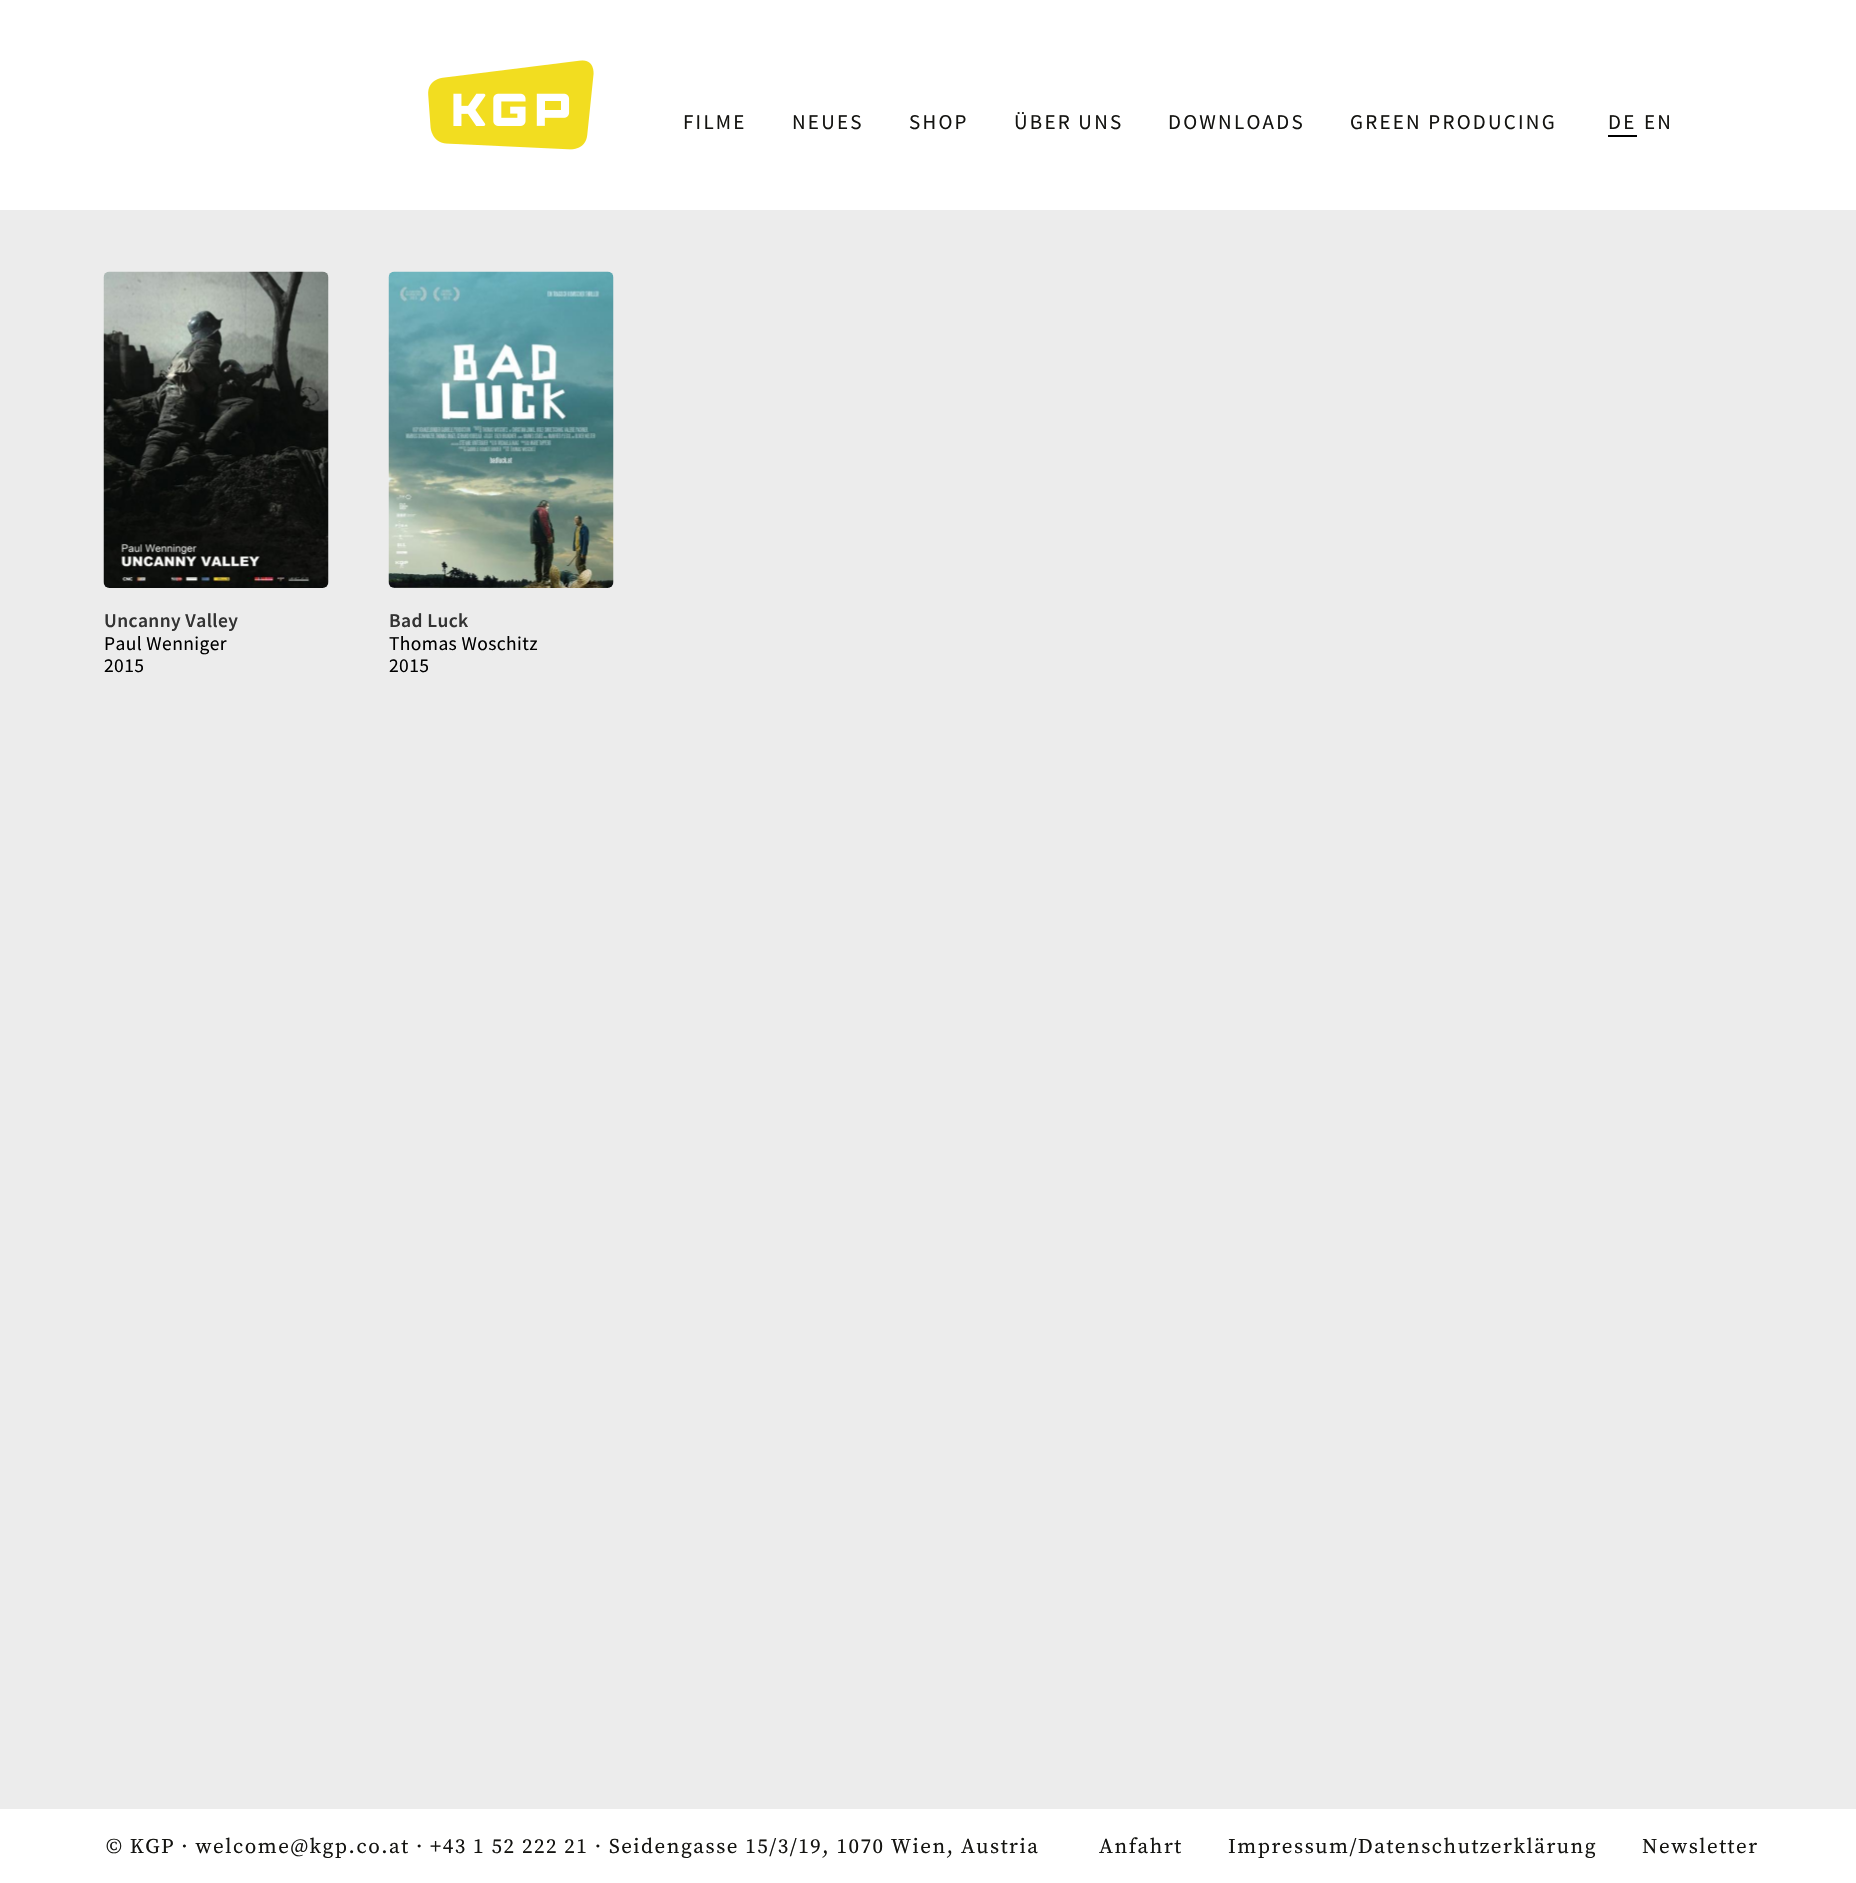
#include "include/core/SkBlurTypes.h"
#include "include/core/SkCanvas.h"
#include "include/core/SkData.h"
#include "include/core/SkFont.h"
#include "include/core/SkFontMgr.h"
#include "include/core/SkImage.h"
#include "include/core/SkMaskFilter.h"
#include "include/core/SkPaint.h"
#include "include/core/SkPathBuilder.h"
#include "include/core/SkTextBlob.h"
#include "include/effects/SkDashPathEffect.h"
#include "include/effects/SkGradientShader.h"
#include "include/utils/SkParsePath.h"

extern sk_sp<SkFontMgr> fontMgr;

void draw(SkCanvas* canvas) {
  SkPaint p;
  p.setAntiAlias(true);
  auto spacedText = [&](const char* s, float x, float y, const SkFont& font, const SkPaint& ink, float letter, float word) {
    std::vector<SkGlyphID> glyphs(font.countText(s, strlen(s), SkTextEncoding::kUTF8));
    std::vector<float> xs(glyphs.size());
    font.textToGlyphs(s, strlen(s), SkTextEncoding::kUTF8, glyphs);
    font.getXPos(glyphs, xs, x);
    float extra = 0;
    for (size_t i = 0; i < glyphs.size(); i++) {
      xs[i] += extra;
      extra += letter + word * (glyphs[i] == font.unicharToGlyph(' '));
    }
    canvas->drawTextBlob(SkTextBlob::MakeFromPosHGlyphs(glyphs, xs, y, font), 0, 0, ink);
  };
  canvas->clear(SkColorSetRGB(236, 236, 236));
  p.setColor(SK_ColorWHITE);
  canvas->drawRect(SkRect::MakeLTRB(0, 0, 1856, 210), p);
  canvas->drawImageRect(SkImages::DeferredFromEncodedData(SkData::MakeFromFileName("images/1.png")), SkRect::MakeLTRB(428, 60, 594, 150), SkSamplingOptions());
  p.setColor(SK_ColorBLACK);
  canvas->drawRect(SkRect::MakeLTRB(1608, 135, 1637, 137), p);
  canvas->drawImageRect(SkImages::DeferredFromEncodedData(SkData::MakeFromFileName("images/2.png")), SkRect::MakeLTRB(103, 271, 329, 588), SkSamplingOptions());
  canvas->drawImageRect(SkImages::DeferredFromEncodedData(SkData::MakeFromFileName("images/3.png")), SkRect::MakeLTRB(388, 271, 614, 588), SkSamplingOptions());
  p.setColor(SK_ColorWHITE);
  canvas->drawRect(SkRect::MakeLTRB(0, 1809, 1856, 1883), p);
  SkFont font1(fontMgr->matchFamilyStyle("Source Sans Pro", SkFontStyle::Normal()), 21);
  font1.setSubpixel(true);
  p.setColor(SkColorSetRGB(20, 20, 17));
  spacedText("FILME", 683, 129, font1, p, 2.25f, 0);
  spacedText("NEUES", 792, 129, font1, p, 2.25f, 0);
  spacedText("SHOP", 909, 129, font1, p, 2.25f, 0);
  spacedText("ÜBER UNS", 1014, 129, font1, p, 2.25f, 0);
  spacedText("DOWNLOADS", 1168, 129, font1, p, 2.25f, 0);
  spacedText("GREEN PRODUCING", 1350, 129, font1, p, 2.25f, 0);
  spacedText("DE", 1608, 129, font1, p, 2.25f, 0);
  spacedText("EN", 1644, 129, font1, p, 2.25f, 0);
  SkFont font2(fontMgr->matchFamilyStyle("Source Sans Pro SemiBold", SkFontStyle(600, SkFontStyle::kNormal_Width, SkFontStyle::kUpright_Slant)), 19.5f);
  font2.setSubpixel(true);
  p.setColor(SkColorSetRGB(51, 51, 51));
  spacedText("Uncanny Valley", 104, 627, font2, p, 0.4f, 0);
  SkFont font3(fontMgr->matchFamilyStyle("Source Sans Pro", SkFontStyle::Normal()), 19.5f);
  font3.setSubpixel(true);
  p.setColor(SK_ColorBLACK);
  spacedText("Paul Wenniger", 104, 650, font3, p, 0.4f, 0);
  spacedText("2015", 104, 672, font3, p, 0.4f, 0);
  p.setColor(SkColorSetRGB(51, 51, 51));
  spacedText("Bad Luck", 389, 627, font2, p, 0.4f, 0);
  p.setColor(SK_ColorBLACK);
  spacedText("Thomas Woschitz", 389, 650, font3, p, 0.4f, 0);
  spacedText("2015", 389, 672, font3, p, 0.4f, 0);
  SkFont font4(fontMgr->matchFamilyStyle("Source Serif Pro", SkFontStyle::Normal()), 21);
  font4.setSubpixel(true);
  p.setColor(SkColorSetRGB(20, 20, 17));
  spacedText("© KGP · welcome@kgp.co.at · +43 1 52 222 21 · Seidengasse 15/3/19, 1070 Wien, Austria", 106, 1853, font4, p, 1.5f, 0);
  spacedText("Anfahrt", 1099, 1853, font4, p, 1.5f, 0);
  spacedText("Impressum/Datenschutzerklärung", 1228, 1853, font4, p, 1.5f, 0);
  spacedText("Newsletter", 1642, 1853, font4, p, 1.5f, 0);
}
